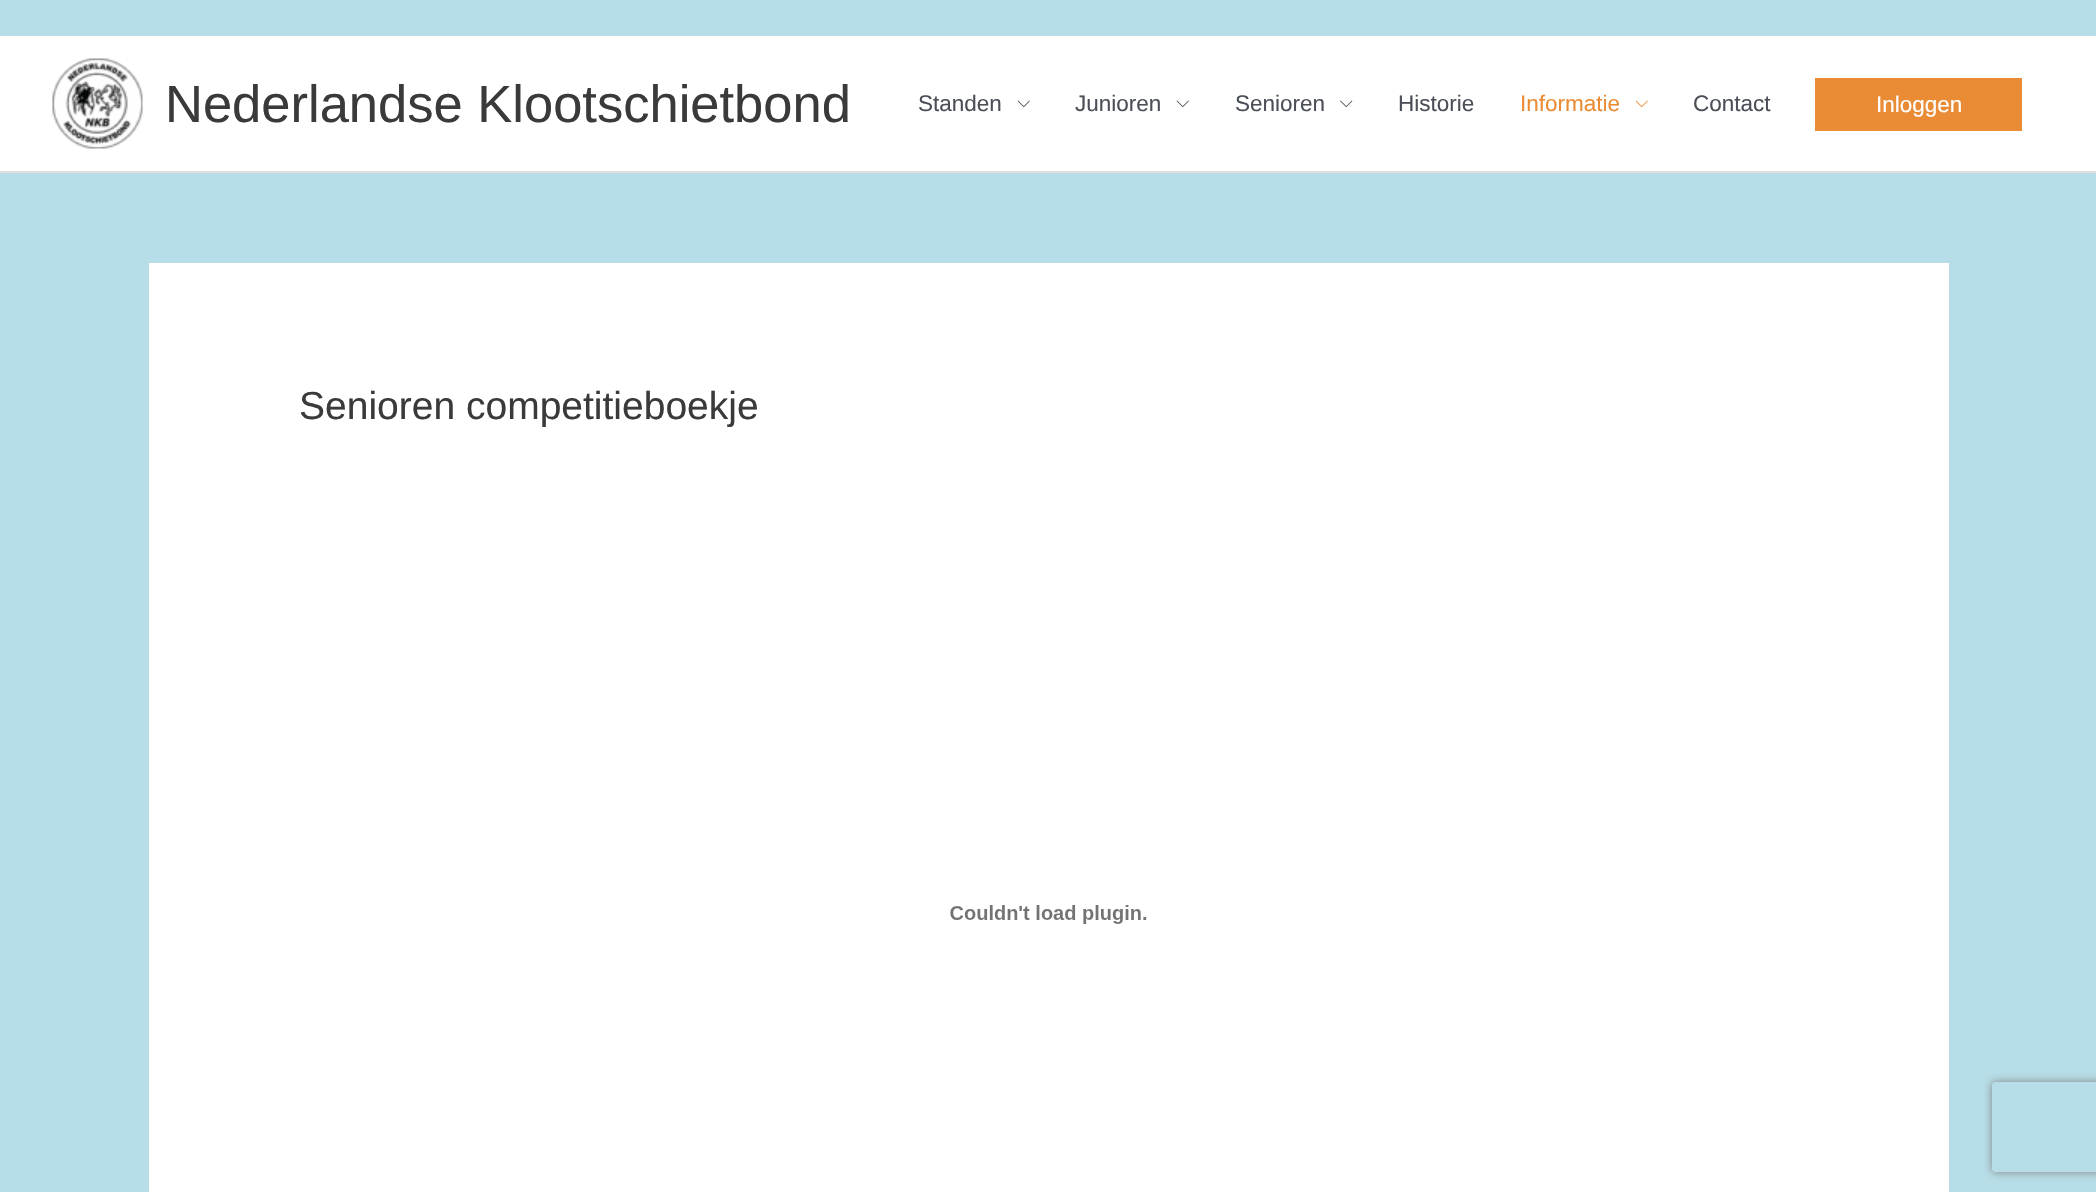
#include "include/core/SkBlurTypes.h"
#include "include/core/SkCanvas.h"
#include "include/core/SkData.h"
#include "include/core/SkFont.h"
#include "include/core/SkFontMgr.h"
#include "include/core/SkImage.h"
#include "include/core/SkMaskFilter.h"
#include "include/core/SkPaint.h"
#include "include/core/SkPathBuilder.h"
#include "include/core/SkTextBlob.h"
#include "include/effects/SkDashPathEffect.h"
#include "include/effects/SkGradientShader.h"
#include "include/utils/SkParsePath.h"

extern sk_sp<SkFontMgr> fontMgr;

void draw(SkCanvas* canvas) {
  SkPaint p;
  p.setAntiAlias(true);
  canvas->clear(SkColorSetRGB(183, 222, 232));
  p.setColor(SK_ColorWHITE);
  canvas->drawRect(SkRect::MakeLTRB(0, 36, 2096, 171), p);
  p.setColor(SkColorSetRGB(221, 221, 221));
  canvas->drawRect(SkRect::MakeLTRB(0, 171, 2096, 173), p);
  canvas->drawImageRect(SkImages::DeferredFromEncodedData(SkData::MakeFromFileName("images/1.png")), SkRect::MakeLTRB(52, 58, 143, 149), SkSamplingOptions());
  canvas->drawImageRect(SkImages::DeferredFromEncodedData(SkData::MakeFromFileName("images/2.png")), SkRect::MakeLTRB(1017, 100, 1030, 108), SkSamplingOptions());
  canvas->drawImageRect(SkImages::DeferredFromEncodedData(SkData::MakeFromFileName("images/2.png")), SkRect::MakeLTRB(1176, 100, 1189, 108), SkSamplingOptions());
  canvas->drawImageRect(SkImages::DeferredFromEncodedData(SkData::MakeFromFileName("images/3.png")), SkRect::MakeLTRB(1340, 100, 1353, 108), SkSamplingOptions());
  canvas->drawImageRect(SkImages::DeferredFromEncodedData(SkData::MakeFromFileName("images/4.png")), SkRect::MakeLTRB(1635, 100, 1648, 108), SkSamplingOptions());
  p.setColor(SkColorSetRGB(234, 140, 53));
  canvas->drawRect(SkRect::MakeLTRB(1815, 78, 2022, 131), p);
  p.setColor(SK_ColorWHITE);
  canvas->drawRect(SkRect::MakeLTRB(149, 263, 1949, 1192), p);
  canvas->drawImageRect(SkImages::DeferredFromEncodedData(SkData::MakeFromFileName("images/5.png")), SkRect::MakeLTRB(950, 905, 1147, 924), SkSamplingOptions());
  canvas->save();
  canvas->clipPath(SkPathBuilder(SkPathFillType::kEvenOdd).moveTo(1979, 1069).lineTo(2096, 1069).lineTo(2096, 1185).lineTo(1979, 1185).close().moveTo(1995, 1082).lineTo(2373, 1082).cubicTo(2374.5f, 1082, 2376, 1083.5f, 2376, 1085).lineTo(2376, 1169).cubicTo(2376, 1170.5f, 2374.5f, 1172, 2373, 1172).lineTo(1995, 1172).cubicTo(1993.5f, 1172, 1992, 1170.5f, 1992, 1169).lineTo(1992, 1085).cubicTo(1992, 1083.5f, 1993.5f, 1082, 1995, 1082).close().detach(), true);
  p.setColor(SkColorSetRGB(128, 128, 128));
  p.setMaskFilter(SkMaskFilter::MakeBlur(kNormal_SkBlurStyle, 4));
  canvas->drawRoundRect(SkRect::MakeLTRB(1992, 1082, 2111, 1172), 3, 3, p);
  p.setMaskFilter(nullptr);
  canvas->restore();
  SkFont font1(fontMgr->matchFamilyStyle("Liberation Sans", SkFontStyle::Normal()), 52.5f);
  font1.setSubpixel(true);
  p.setColor(SkColorSetRGB(58, 58, 58));
  canvas->drawString("Nederlandse Klootschietbond", 165, 122, font1, p);
  SkFont font2(fontMgr->matchFamilyStyle("Liberation Sans", SkFontStyle::Normal()), 22.5f);
  font2.setSubpixel(true);
  p.setColor(SkColorSetRGB(75, 79, 88));
  canvas->drawString("Standen", 918, 111, font2, p);
  canvas->drawString("Junioren", 1075, 111, font2, p);
  canvas->drawString("Senioren", 1235, 111, font2, p);
  canvas->drawString("Historie", 1398, 111, font2, p);
  p.setColor(SkColorSetRGB(234, 140, 53));
  canvas->drawString("Informatie", 1520, 111, font2, p);
  p.setColor(SkColorSetRGB(75, 79, 88));
  canvas->drawString("Contact", 1693, 111, font2, p);
  p.setColor(SK_ColorWHITE);
  canvas->drawString("Inloggen", 1876, 112, font2, p);
  SkFont font3(fontMgr->matchFamilyStyle("Liberation Sans", SkFontStyle::Normal()), 39);
  font3.setSubpixel(true);
  p.setColor(SkColorSetRGB(58, 58, 58));
  canvas->drawString("Senioren competitieboekje", 299, 419, font3, p);
}
